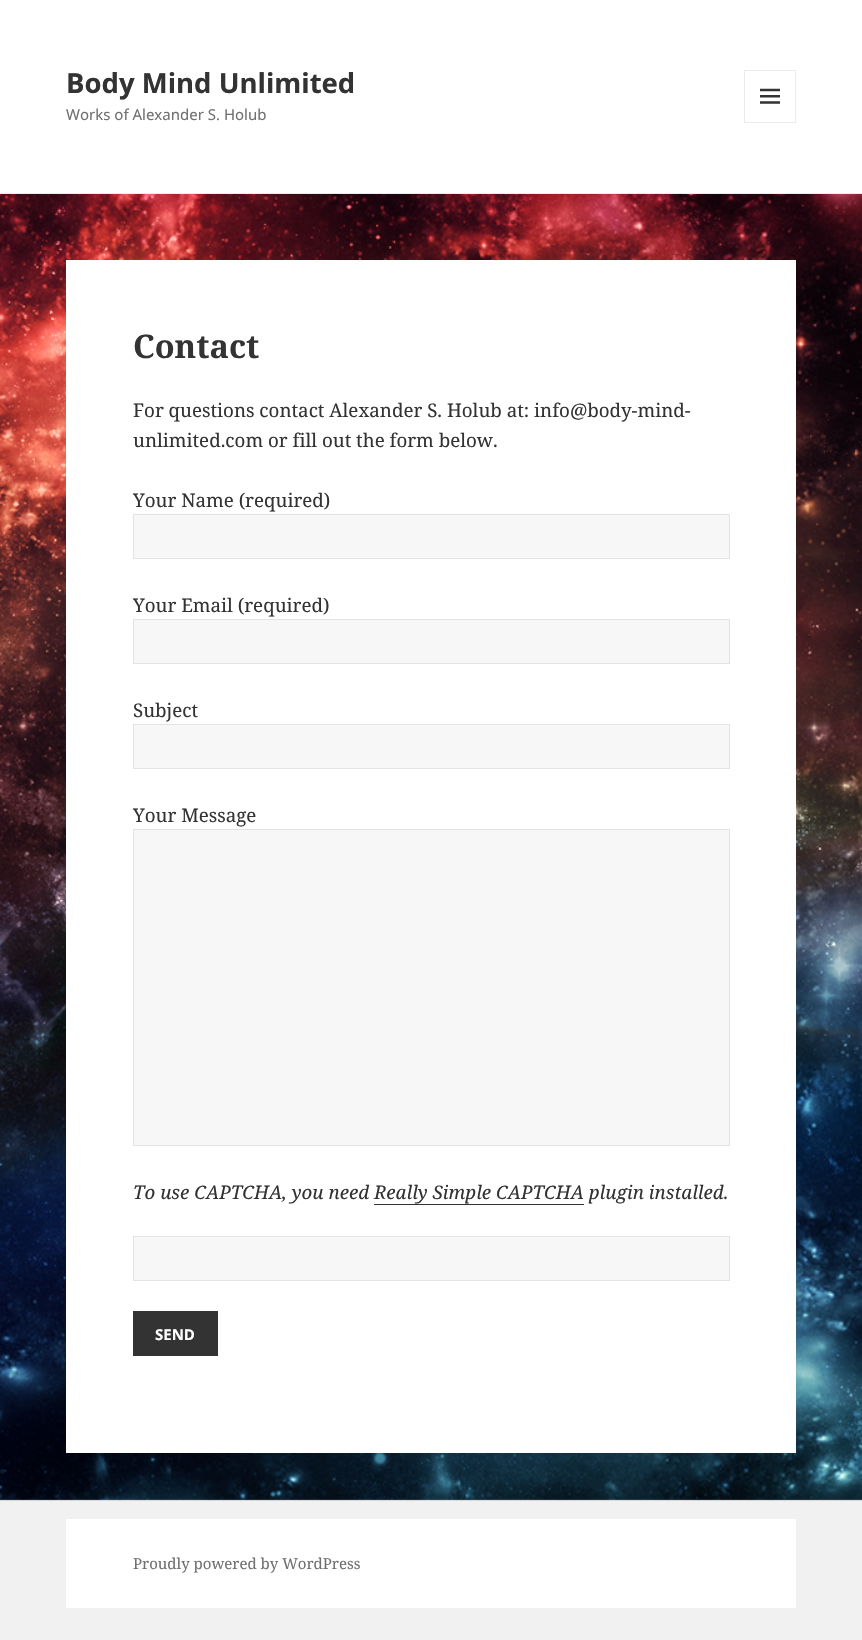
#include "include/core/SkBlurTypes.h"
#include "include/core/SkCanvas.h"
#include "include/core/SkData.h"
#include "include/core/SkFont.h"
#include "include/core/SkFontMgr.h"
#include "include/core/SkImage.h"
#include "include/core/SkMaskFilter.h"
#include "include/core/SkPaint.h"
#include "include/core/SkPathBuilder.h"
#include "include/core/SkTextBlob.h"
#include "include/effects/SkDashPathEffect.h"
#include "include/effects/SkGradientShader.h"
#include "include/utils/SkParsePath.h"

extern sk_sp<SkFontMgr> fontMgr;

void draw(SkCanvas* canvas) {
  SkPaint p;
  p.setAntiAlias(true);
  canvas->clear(SkColorSetRGB(241, 241, 241));
  canvas->drawImageRect(SkImages::DeferredFromEncodedData(SkData::MakeFromFileName("images/1.png")), SkRect::MakeLTRB(0, 194, 862, 1501), SkSamplingOptions());
  p.setColor(SK_ColorWHITE);
  canvas->drawRect(SkRect::MakeLTRB(0, 0, 862, 193), p);
  p.setColor(SkColorSetRGB(235, 235, 235));
  canvas->drawRect(SkRect::MakeLTRB(0, 193, 862, 194), p);
  p.setStyle(SkPaint::kStroke_Style);
  p.setStrokeWidth(1);
  canvas->drawRect(SkRect::MakeLTRB(744.5f, 70.5f, 795.5f, 122.5f), p);
  canvas->drawImageRect(SkImages::DeferredFromEncodedData(SkData::MakeFromFileName("images/2.png")), SkRect::MakeLTRB(760, 88, 780, 104), SkSamplingOptions());
  p.setStyle(SkPaint::kFill_Style);
  p.setColor(SK_ColorWHITE);
  canvas->drawRect(SkRect::MakeLTRB(66, 260, 796, 1453), p);
  p.setColor(SkColorSetRGB(247, 247, 247));
  canvas->drawRect(SkRect::MakeLTRB(133.5f, 514.5f, 729.5f, 558.5f), p);
  p.setStyle(SkPaint::kStroke_Style);
  p.setColor(SkColorSetRGB(227, 227, 227));
  canvas->drawRect(SkRect::MakeLTRB(133.5f, 514.5f, 729.5f, 558.5f), p);
  p.setStyle(SkPaint::kFill_Style);
  p.setColor(SkColorSetRGB(247, 247, 247));
  canvas->drawRect(SkRect::MakeLTRB(133.5f, 619.5f, 729.5f, 663.5f), p);
  p.setStyle(SkPaint::kStroke_Style);
  p.setColor(SkColorSetRGB(227, 227, 227));
  canvas->drawRect(SkRect::MakeLTRB(133.5f, 619.5f, 729.5f, 663.5f), p);
  p.setStyle(SkPaint::kFill_Style);
  p.setColor(SkColorSetRGB(247, 247, 247));
  canvas->drawRect(SkRect::MakeLTRB(133.5f, 724.5f, 729.5f, 768.5f), p);
  p.setStyle(SkPaint::kStroke_Style);
  p.setColor(SkColorSetRGB(227, 227, 227));
  canvas->drawRect(SkRect::MakeLTRB(133.5f, 724.5f, 729.5f, 768.5f), p);
  p.setStyle(SkPaint::kFill_Style);
  p.setColor(SkColorSetRGB(247, 247, 247));
  canvas->drawRect(SkRect::MakeLTRB(133.5f, 829.5f, 729.5f, 1145.5f), p);
  p.setStyle(SkPaint::kStroke_Style);
  p.setColor(SkColorSetRGB(227, 227, 227));
  canvas->drawRect(SkRect::MakeLTRB(133.5f, 829.5f, 729.5f, 1145.5f), p);
  p.setStyle(SkPaint::kFill_Style);
  p.setColor(SkColorSetRGB(51, 51, 51));
  canvas->drawRect(SkRect::MakeLTRB(374, 1204, 584, 1205), p);
  p.setColor(SkColorSetRGB(247, 247, 247));
  canvas->drawRect(SkRect::MakeLTRB(133.5f, 1236.5f, 729.5f, 1280.5f), p);
  p.setStyle(SkPaint::kStroke_Style);
  p.setColor(SkColorSetRGB(227, 227, 227));
  canvas->drawRect(SkRect::MakeLTRB(133.5f, 1236.5f, 729.5f, 1280.5f), p);
  p.setStyle(SkPaint::kFill_Style);
  p.setColor(SkColorSetRGB(51, 51, 51));
  canvas->drawRect(SkRect::MakeLTRB(133, 1311, 218, 1356), p);
  p.setColor(SK_ColorWHITE);
  canvas->drawRect(SkRect::MakeLTRB(66, 1519, 796, 1608), p);
  SkFont font1(fontMgr->matchFamilyStyle("Noto Sans", SkFontStyle::Bold()), 27.5f);
  font1.setSubpixel(true);
  p.setColor(SkColorSetRGB(51, 51, 51));
  canvas->drawString("Body Mind Unlimited", 66, 93, font1, p);
  SkFont font2(fontMgr->matchFamilyStyle("Noto Sans", SkFontStyle::Normal()), 15);
  font2.setSubpixel(true);
  p.setColor(SkColorSetRGB(112, 112, 112));
  canvas->drawString("Works of Alexander S. Holub", 66, 120, font2, p);
  SkFont font3(fontMgr->matchFamilyStyle("Noto Serif", SkFontStyle::Bold()), 32.5f);
  font3.setSubpixel(true);
  p.setColor(SkColorSetRGB(51, 51, 51));
  canvas->drawString("Contact", 133, 358, font3, p);
  SkFont font4(fontMgr->matchFamilyStyle("Noto Serif", SkFontStyle::Normal()), 18.75f);
  font4.setSubpixel(true);
  canvas->drawString("For questions contact Alexander S. Holub at: info@body-mind-", 133, 417, font4, p);
  canvas->drawString("unlimited.com or fill out the form below.", 133, 447, font4, p);
  canvas->drawString("Your Name (required)", 133, 507, font4, p);
  canvas->drawString("Your Email (required)", 133, 612, font4, p);
  canvas->drawString("Subject", 133, 717, font4, p);
  canvas->drawString("Your Message", 133, 822, font4, p);
  SkFont font5(fontMgr->matchFamilyStyle("Noto Serif", SkFontStyle::Italic()), 18.75f);
  font5.setSubpixel(true);
  canvas->drawString("To use CAPTCHA, you need Really Simple CAPTCHA plugin installed.", 133, 1199, font5, p);
  SkFont font6(fontMgr->matchFamilyStyle("Noto Sans", SkFontStyle::Bold()), 15);
  font6.setSubpixel(true);
  p.setColor(SK_ColorWHITE);
  canvas->drawString("SEND", 155, 1340, font6, p);
  SkFont font7(fontMgr->matchFamilyStyle("Noto Serif", SkFontStyle::Normal()), 15);
  font7.setSubpixel(true);
  p.setColor(SkColorSetRGB(112, 112, 112));
  canvas->drawString("Proudly powered by WordPress", 133, 1569, font7, p);
}
